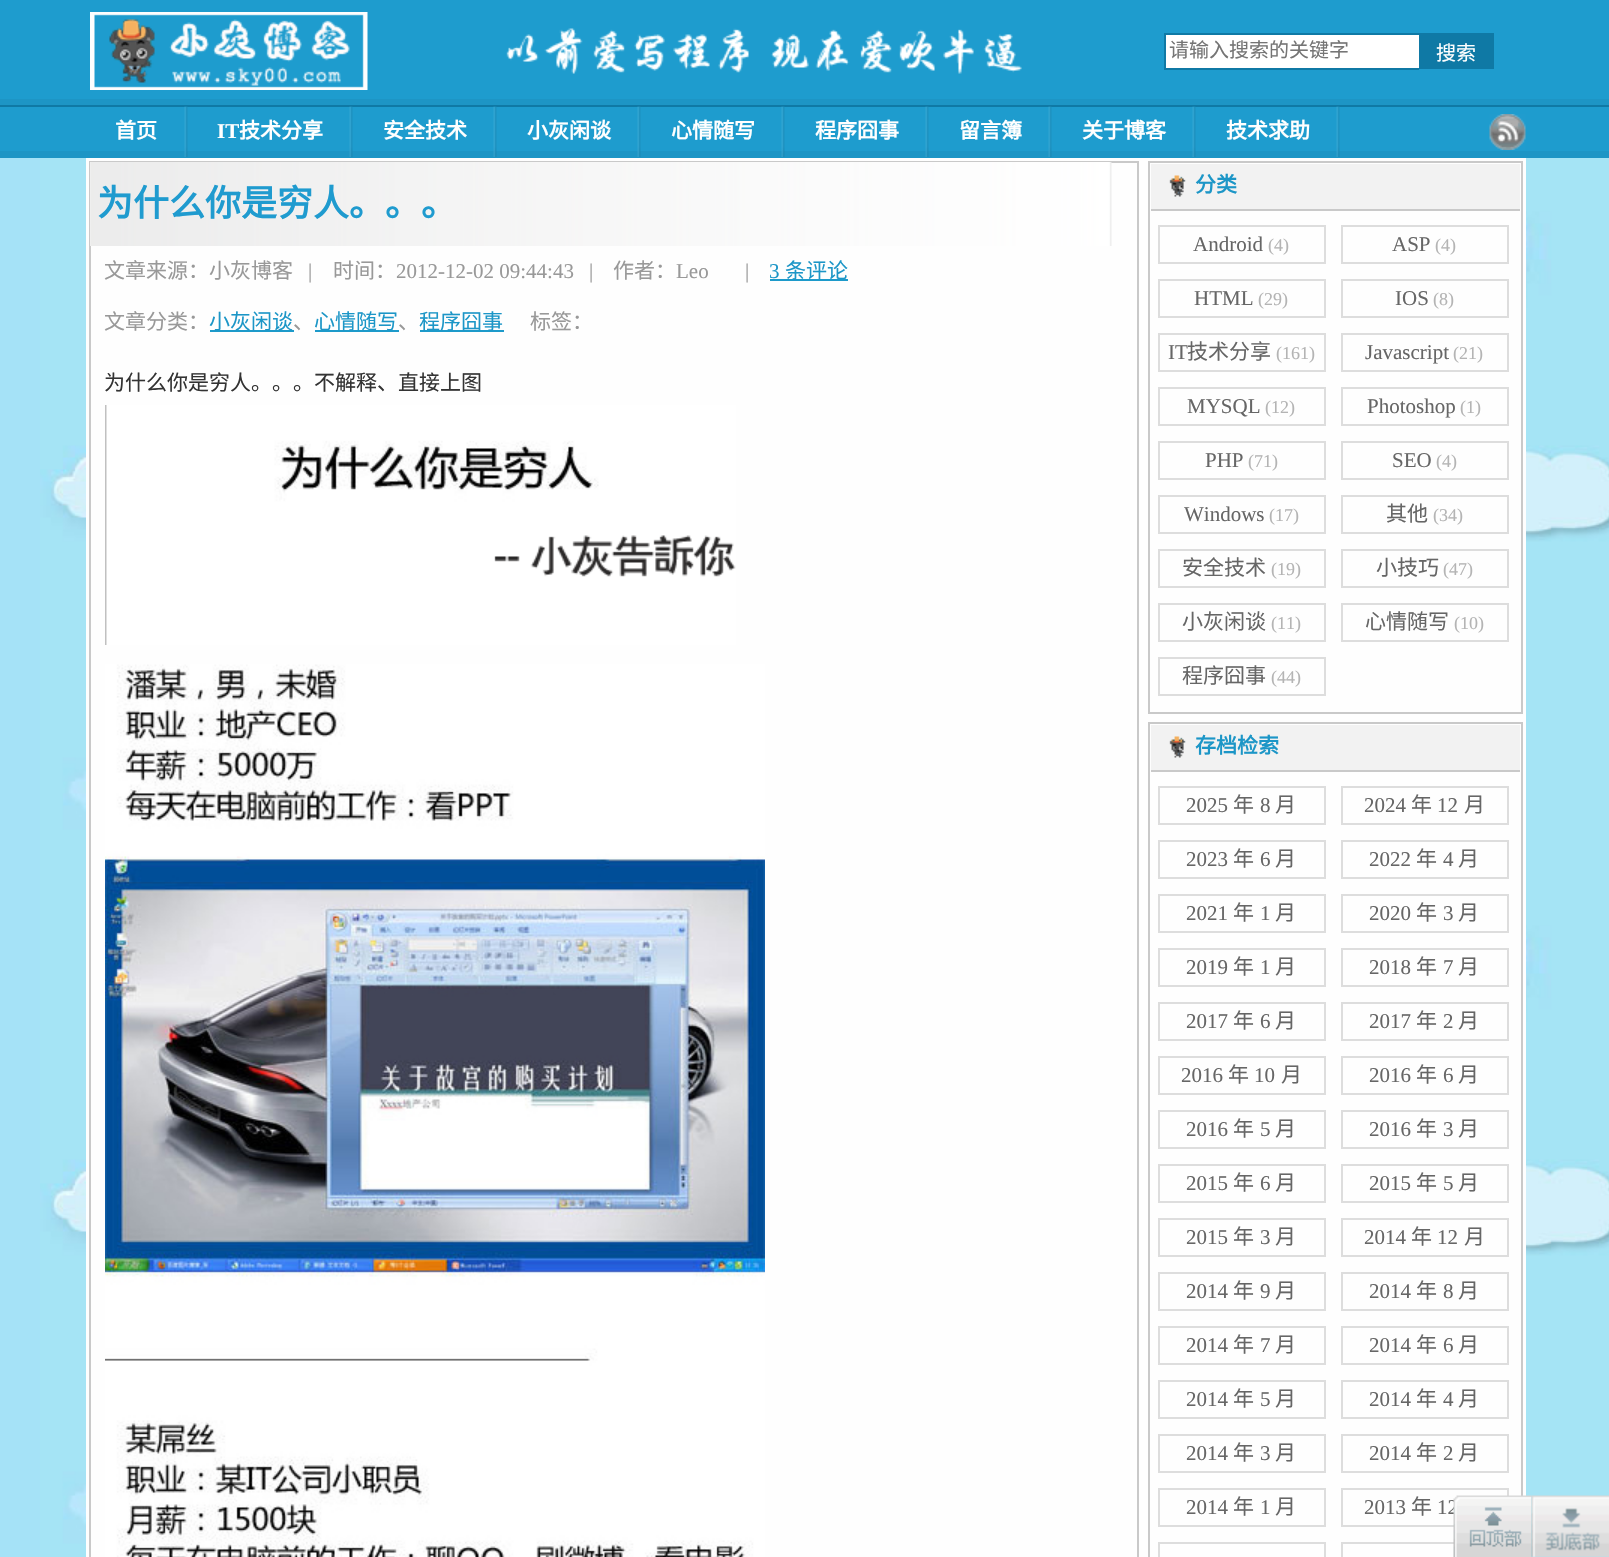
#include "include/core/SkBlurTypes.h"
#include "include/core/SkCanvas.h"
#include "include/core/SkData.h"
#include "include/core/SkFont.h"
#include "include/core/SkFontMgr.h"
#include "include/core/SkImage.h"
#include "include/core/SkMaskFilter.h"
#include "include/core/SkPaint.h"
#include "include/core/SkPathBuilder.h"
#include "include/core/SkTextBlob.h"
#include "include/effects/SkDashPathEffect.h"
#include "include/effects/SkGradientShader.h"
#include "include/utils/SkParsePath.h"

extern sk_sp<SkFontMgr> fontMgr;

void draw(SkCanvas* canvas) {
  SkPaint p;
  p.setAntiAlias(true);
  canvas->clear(SkColorSetRGB(165, 226, 247));
  canvas->drawImageRect(SkImages::DeferredFromEncodedData(SkData::MakeFromFileName("images/1.png")), SkRect::MakeLTRB(40, 158, 1609, 1557), SkSamplingOptions());
  p.setColor(SkColorSetRGB(30, 156, 206));
  canvas->drawRect(SkRect::MakeLTRB(0, 0, 1609, 99), p);
  p.setColor(SkColorSetRGB(29, 149, 197));
  canvas->drawRect(SkRect::MakeLTRB(0, 99, 1609, 105), p);
  p.setColor(SkColorSetRGB(15, 121, 165));
  canvas->drawRect(SkRect::MakeLTRB(0, 105, 1609, 107), p);
  canvas->drawImageRect(SkImages::DeferredFromEncodedData(SkData::MakeFromFileName("images/2.png")), SkRect::MakeLTRB(90, 12, 368, 90), SkSamplingOptions());
  canvas->drawImageRect(SkImages::DeferredFromEncodedData(SkData::MakeFromFileName("images/3.png")), SkRect::MakeLTRB(506, 28, 1022, 74), SkSamplingOptions());
  p.setColor(SK_ColorWHITE);
  canvas->drawRect(SkRect::MakeLTRB(1166, 35, 1419, 68), p);
  p.setColor(SkColorSetRGB(15, 121, 165));
  canvas->drawRect(SkRect::MakeLTRB(1164, 33, 1419, 35), p);
  canvas->drawRect(SkRect::MakeLTRB(1164, 68, 1419, 70), p);
  canvas->drawRect(SkRect::MakeLTRB(1164, 33, 1166, 69), p);
  canvas->drawRect(SkRect::MakeLTRB(1419, 33, 1494, 69), p);
  p.setColor(SkColorSetRGB(30, 156, 206));
  canvas->drawRect(SkRect::MakeLTRB(0, 107, 1609, 151), p);
  p.setColor(SkColorSetRGB(29, 149, 197));
  canvas->drawRect(SkRect::MakeLTRB(0, 151, 1609, 158), p);
  canvas->drawImageRect(SkImages::DeferredFromEncodedData(SkData::MakeFromFileName("images/4.png")), SkRect::MakeLTRB(184, 106, 188, 157), SkSamplingOptions());
  canvas->drawImageRect(SkImages::DeferredFromEncodedData(SkData::MakeFromFileName("images/4.png")), SkRect::MakeLTRB(349, 106, 353, 157), SkSamplingOptions());
  canvas->drawImageRect(SkImages::DeferredFromEncodedData(SkData::MakeFromFileName("images/4.png")), SkRect::MakeLTRB(493, 106, 497, 157), SkSamplingOptions());
  canvas->drawImageRect(SkImages::DeferredFromEncodedData(SkData::MakeFromFileName("images/4.png")), SkRect::MakeLTRB(637, 106, 641, 157), SkSamplingOptions());
  canvas->drawImageRect(SkImages::DeferredFromEncodedData(SkData::MakeFromFileName("images/4.png")), SkRect::MakeLTRB(781, 106, 785, 157), SkSamplingOptions());
  canvas->drawImageRect(SkImages::DeferredFromEncodedData(SkData::MakeFromFileName("images/4.png")), SkRect::MakeLTRB(925, 106, 929, 157), SkSamplingOptions());
  canvas->drawImageRect(SkImages::DeferredFromEncodedData(SkData::MakeFromFileName("images/4.png")), SkRect::MakeLTRB(1048, 106, 1052, 157), SkSamplingOptions());
  canvas->drawImageRect(SkImages::DeferredFromEncodedData(SkData::MakeFromFileName("images/4.png")), SkRect::MakeLTRB(1192, 106, 1196, 157), SkSamplingOptions());
  canvas->drawImageRect(SkImages::DeferredFromEncodedData(SkData::MakeFromFileName("images/4.png")), SkRect::MakeLTRB(1336, 106, 1340, 157), SkSamplingOptions());
  canvas->drawImageRect(SkImages::DeferredFromEncodedData(SkData::MakeFromFileName("images/5.png")), SkRect::MakeLTRB(1489, 114, 1526, 150), SkSamplingOptions());
  p.setColor(SkColorSetRGB(254, 254, 254));
  canvas->drawRect(SkRect::MakeLTRB(86, 158, 1526, 1557), p);
  p.setStyle(SkPaint::kStroke_Style);
  p.setStrokeWidth(2);
  p.setColor(SkColorSetRGB(201, 201, 201));
  canvas->drawRect(SkRect::MakeLTRB(90, 162, 1138, 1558), p);
  canvas->drawImageRect(SkImages::DeferredFromEncodedData(SkData::MakeFromFileName("images/6.png")), SkRect::MakeLTRB(90, 162, 1112, 246), SkSamplingOptions());
  p.setStyle(SkPaint::kFill_Style);
  p.setColor(SkColorSetRGB(29, 154, 202));
  canvas->drawRect(SkRect::MakeLTRB(770, 279, 848, 281), p);
  canvas->drawRect(SkRect::MakeLTRB(210, 330, 294, 332), p);
  canvas->drawRect(SkRect::MakeLTRB(315, 330, 399, 332), p);
  canvas->drawRect(SkRect::MakeLTRB(420, 330, 504, 332), p);
  canvas->drawImageRect(SkImages::DeferredFromEncodedData(SkData::MakeFromFileName("images/7.png")), SkRect::MakeLTRB(105, 405, 736, 645), SkSamplingOptions());
  canvas->drawImageRect(SkImages::DeferredFromEncodedData(SkData::MakeFromFileName("images/8.png")), SkRect::MakeLTRB(105, 664, 765, 1557), SkSamplingOptions());
  p.setStyle(SkPaint::kStroke_Style);
  p.setColor(SkColorSetRGB(201, 201, 201));
  canvas->drawRect(SkRect::MakeLTRB(1149, 162, 1522, 713), p);
  p.setStyle(SkPaint::kFill_Style);
  p.setColor(SkColorSetRGB(242, 242, 242));
  canvas->drawRect(SkRect::MakeLTRB(1151, 164, 1520, 209), p);
  canvas->drawImageRect(SkImages::DeferredFromEncodedData(SkData::MakeFromFileName("images/9.png")), SkRect::MakeLTRB(1169, 175, 1186, 197), SkSamplingOptions());
  p.setColor(SkColorSetRGB(201, 201, 201));
  canvas->drawRect(SkRect::MakeLTRB(1151, 209, 1520, 211), p);
  p.setStyle(SkPaint::kStroke_Style);
  p.setColor(SkColorSetRGB(221, 221, 221));
  canvas->drawRect(SkRect::MakeLTRB(1159, 226, 1325, 263), p);
  canvas->drawRect(SkRect::MakeLTRB(1342, 226, 1508, 263), p);
  canvas->drawRect(SkRect::MakeLTRB(1159, 280, 1325, 317), p);
  canvas->drawRect(SkRect::MakeLTRB(1342, 280, 1508, 317), p);
  canvas->drawRect(SkRect::MakeLTRB(1159, 334, 1325, 371), p);
  canvas->drawRect(SkRect::MakeLTRB(1342, 334, 1508, 371), p);
  canvas->drawRect(SkRect::MakeLTRB(1159, 388, 1325, 425), p);
  canvas->drawRect(SkRect::MakeLTRB(1342, 388, 1508, 425), p);
  canvas->drawRect(SkRect::MakeLTRB(1159, 442, 1325, 479), p);
  canvas->drawRect(SkRect::MakeLTRB(1342, 442, 1508, 479), p);
  canvas->drawRect(SkRect::MakeLTRB(1159, 496, 1325, 533), p);
  canvas->drawRect(SkRect::MakeLTRB(1342, 496, 1508, 533), p);
  canvas->drawRect(SkRect::MakeLTRB(1159, 550, 1325, 587), p);
  canvas->drawRect(SkRect::MakeLTRB(1342, 550, 1508, 587), p);
  canvas->drawRect(SkRect::MakeLTRB(1159, 604, 1325, 641), p);
  canvas->drawRect(SkRect::MakeLTRB(1342, 604, 1508, 641), p);
  canvas->drawRect(SkRect::MakeLTRB(1159, 658, 1325, 695), p);
  p.setColor(SkColorSetRGB(201, 201, 201));
  canvas->drawRect(SkRect::MakeLTRB(1149, 723, 1522, 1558), p);
  p.setStyle(SkPaint::kFill_Style);
  p.setColor(SkColorSetRGB(242, 242, 242));
  canvas->drawRect(SkRect::MakeLTRB(1151, 725, 1520, 770), p);
  canvas->drawImageRect(SkImages::DeferredFromEncodedData(SkData::MakeFromFileName("images/9.png")), SkRect::MakeLTRB(1169, 736, 1186, 758), SkSamplingOptions());
  p.setColor(SkColorSetRGB(201, 201, 201));
  canvas->drawRect(SkRect::MakeLTRB(1151, 770, 1520, 772), p);
  p.setStyle(SkPaint::kStroke_Style);
  p.setColor(SkColorSetRGB(221, 221, 221));
  canvas->drawRect(SkRect::MakeLTRB(1159, 787, 1325, 824), p);
  canvas->drawRect(SkRect::MakeLTRB(1342, 787, 1508, 824), p);
  canvas->drawRect(SkRect::MakeLTRB(1159, 841, 1325, 878), p);
  canvas->drawRect(SkRect::MakeLTRB(1342, 841, 1508, 878), p);
  canvas->drawRect(SkRect::MakeLTRB(1159, 895, 1325, 932), p);
  canvas->drawRect(SkRect::MakeLTRB(1342, 895, 1508, 932), p);
  canvas->drawRect(SkRect::MakeLTRB(1159, 949, 1325, 986), p);
  canvas->drawRect(SkRect::MakeLTRB(1342, 949, 1508, 986), p);
  canvas->drawRect(SkRect::MakeLTRB(1159, 1003, 1325, 1040), p);
  canvas->drawRect(SkRect::MakeLTRB(1342, 1003, 1508, 1040), p);
  canvas->drawRect(SkRect::MakeLTRB(1159, 1057, 1325, 1094), p);
  canvas->drawRect(SkRect::MakeLTRB(1342, 1057, 1508, 1094), p);
  canvas->drawRect(SkRect::MakeLTRB(1159, 1111, 1325, 1148), p);
  canvas->drawRect(SkRect::MakeLTRB(1342, 1111, 1508, 1148), p);
  canvas->drawRect(SkRect::MakeLTRB(1159, 1165, 1325, 1202), p);
  canvas->drawRect(SkRect::MakeLTRB(1342, 1165, 1508, 1202), p);
  canvas->drawRect(SkRect::MakeLTRB(1159, 1219, 1325, 1256), p);
  canvas->drawRect(SkRect::MakeLTRB(1342, 1219, 1508, 1256), p);
  canvas->drawRect(SkRect::MakeLTRB(1159, 1273, 1325, 1310), p);
  canvas->drawRect(SkRect::MakeLTRB(1342, 1273, 1508, 1310), p);
  canvas->drawRect(SkRect::MakeLTRB(1159, 1327, 1325, 1364), p);
  canvas->drawRect(SkRect::MakeLTRB(1342, 1327, 1508, 1364), p);
  canvas->drawRect(SkRect::MakeLTRB(1159, 1381, 1325, 1418), p);
  canvas->drawRect(SkRect::MakeLTRB(1342, 1381, 1508, 1418), p);
  canvas->drawRect(SkRect::MakeLTRB(1159, 1435, 1325, 1472), p);
  canvas->drawRect(SkRect::MakeLTRB(1342, 1435, 1508, 1472), p);
  canvas->drawRect(SkRect::MakeLTRB(1159, 1489, 1325, 1526), p);
  canvas->drawRect(SkRect::MakeLTRB(1342, 1489, 1508, 1526), p);
  canvas->drawRect(SkRect::MakeLTRB(1159, 1543, 1325, 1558), p);
  canvas->drawRect(SkRect::MakeLTRB(1342, 1543, 1508, 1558), p);
  SkFont font1(fontMgr->matchFamilyStyle("Noto Sans CJK SC", SkFontStyle::Normal()), 20);
  font1.setSubpixel(true);
  p.setStyle(SkPaint::kFill_Style);
  p.setColor(SkColorSetRGB(117, 117, 117));
  canvas->drawString("请输入搜索的关键字", 1169, 57, font1, p);
  p.setColor(SK_ColorWHITE);
  canvas->drawString("搜索", 1436, 60, font1, p);
  SkFont font2(fontMgr->matchFamilyStyle("Noto Sans CJK SC", SkFontStyle::Bold()), 21);
  font2.setSubpixel(true);
  canvas->drawString("首页", 115, 138, font2, p);
  SkFont font3(fontMgr->matchFamilyStyle("Liberation Serif", SkFontStyle::Bold()), 21);
  font3.setSubpixel(true);
  canvas->drawString("IT", 217, 138, font3, p);
  canvas->drawString("技术分享", 239, 138, font2, p);
  canvas->drawString("安全技术", 383, 138, font2, p);
  canvas->drawString("小灰闲谈", 527, 138, font2, p);
  canvas->drawString("心情随写", 671, 138, font2, p);
  canvas->drawString("程序囧事", 815, 138, font2, p);
  canvas->drawString("留言簿", 959, 138, font2, p);
  canvas->drawString("关于博客", 1082, 138, font2, p);
  canvas->drawString("技术求助", 1226, 138, font2, p);
  SkFont font4(fontMgr->matchFamilyStyle("Noto Sans CJK SC", SkFontStyle::Bold()), 36);
  font4.setSubpixel(true);
  p.setColor(SkColorSetRGB(31, 155, 207));
  canvas->drawString("为什么你是穷人。。。", 97, 216, font4, p);
  SkFont font5(fontMgr->matchFamilyStyle("Noto Sans CJK SC", SkFontStyle::Normal()), 21);
  font5.setSubpixel(true);
  p.setColor(SkColorSetRGB(153, 153, 153));
  canvas->drawString("文章来源：小灰博客", 104, 278, font5, p);
  SkFont font6(fontMgr->matchFamilyStyle("Liberation Serif", SkFontStyle::Normal()), 21);
  font6.setSubpixel(true);
  canvas->drawString("|", 308, 278, font6, p);
  canvas->drawString("时间：", 333, 278, font5, p);
  canvas->drawString("2012-12-02 09:44:43", 396, 278, font6, p);
  canvas->drawString("|", 589, 278, font6, p);
  canvas->drawString("作者：", 613, 278, font5, p);
  canvas->drawString("Leo", 676, 278, font6, p);
  canvas->drawString("|", 745, 278, font6, p);
  p.setColor(SkColorSetRGB(28, 150, 199));
  canvas->drawString("3", 769, 278, font6, p);
  canvas->drawString("条评论", 785, 278, font5, p);
  p.setColor(SkColorSetRGB(153, 153, 153));
  canvas->drawString("文章分类：", 104, 329, font5, p);
  p.setColor(SkColorSetRGB(28, 150, 199));
  canvas->drawString("小灰闲谈", 209, 329, font5, p);
  p.setColor(SkColorSetRGB(153, 153, 153));
  canvas->drawString("、", 293, 329, font5, p);
  p.setColor(SkColorSetRGB(28, 150, 199));
  canvas->drawString("心情随写", 314, 329, font5, p);
  p.setColor(SkColorSetRGB(153, 153, 153));
  canvas->drawString("、", 398, 329, font5, p);
  p.setColor(SkColorSetRGB(28, 150, 199));
  canvas->drawString("程序囧事", 419, 329, font5, p);
  p.setColor(SkColorSetRGB(153, 153, 153));
  canvas->drawString("标签：", 530, 329, font5, p);
  p.setColor(SkColorSetRGB(51, 51, 51));
  canvas->drawString("为什么你是穷人。。。不解释、直接上图", 104, 390, font5, p);
  p.setColor(SkColorSetRGB(28, 150, 199));
  canvas->drawString("分类", 1195, 192, font2, p);
  p.setColor(SkColorSetRGB(102, 102, 102));
  canvas->drawString("Android", 1193, 251, font6, p);
  SkFont font7(fontMgr->matchFamilyStyle("Liberation Serif", SkFontStyle::Normal()), 18);
  font7.setSubpixel(true);
  p.setColor(SkColorSetRGB(180, 180, 180));
  canvas->drawString("(4)", 1268, 251, font7, p);
  p.setColor(SkColorSetRGB(102, 102, 102));
  canvas->drawString("ASP", 1392, 251, font6, p);
  p.setColor(SkColorSetRGB(180, 180, 180));
  canvas->drawString("(4)", 1435, 251, font7, p);
  p.setColor(SkColorSetRGB(102, 102, 102));
  canvas->drawString("HTML", 1194, 305, font6, p);
  p.setColor(SkColorSetRGB(180, 180, 180));
  canvas->drawString("(29)", 1258, 305, font7, p);
  p.setColor(SkColorSetRGB(102, 102, 102));
  canvas->drawString("IOS", 1395, 305, font6, p);
  p.setColor(SkColorSetRGB(180, 180, 180));
  canvas->drawString("(8)", 1433, 305, font7, p);
  p.setColor(SkColorSetRGB(102, 102, 102));
  canvas->drawString("IT", 1168, 359, font6, p);
  canvas->drawString("技术分享", 1187, 359, font5, p);
  p.setColor(SkColorSetRGB(180, 180, 180));
  canvas->drawString("(161)", 1276, 359, font7, p);
  p.setColor(SkColorSetRGB(102, 102, 102));
  canvas->drawString("Javascript", 1365, 359, font6, p);
  p.setColor(SkColorSetRGB(180, 180, 180));
  canvas->drawString("(21)", 1453, 359, font7, p);
  p.setColor(SkColorSetRGB(102, 102, 102));
  canvas->drawString("MYSQL", 1187, 413, font6, p);
  p.setColor(SkColorSetRGB(180, 180, 180));
  canvas->drawString("(12)", 1265, 413, font7, p);
  p.setColor(SkColorSetRGB(102, 102, 102));
  canvas->drawString("Photoshop", 1367, 413, font6, p);
  p.setColor(SkColorSetRGB(180, 180, 180));
  canvas->drawString("(1)", 1460, 413, font7, p);
  p.setColor(SkColorSetRGB(102, 102, 102));
  canvas->drawString("PHP", 1205, 467, font6, p);
  p.setColor(SkColorSetRGB(180, 180, 180));
  canvas->drawString("(71)", 1248, 467, font7, p);
  p.setColor(SkColorSetRGB(102, 102, 102));
  canvas->drawString("SEO", 1392, 467, font6, p);
  p.setColor(SkColorSetRGB(180, 180, 180));
  canvas->drawString("(4)", 1436, 467, font7, p);
  p.setColor(SkColorSetRGB(102, 102, 102));
  canvas->drawString("Windows", 1184, 521, font6, p);
  p.setColor(SkColorSetRGB(180, 180, 180));
  canvas->drawString("(17)", 1269, 521, font7, p);
  p.setColor(SkColorSetRGB(102, 102, 102));
  canvas->drawString("其他", 1386, 521, font5, p);
  p.setColor(SkColorSetRGB(180, 180, 180));
  canvas->drawString("(34)", 1433, 521, font7, p);
  p.setColor(SkColorSetRGB(102, 102, 102));
  canvas->drawString("安全技术", 1182, 575, font5, p);
  p.setColor(SkColorSetRGB(180, 180, 180));
  canvas->drawString("(19)", 1271, 575, font7, p);
  p.setColor(SkColorSetRGB(102, 102, 102));
  canvas->drawString("小技巧", 1376, 575, font5, p);
  p.setColor(SkColorSetRGB(180, 180, 180));
  canvas->drawString("(47)", 1443, 575, font7, p);
  p.setColor(SkColorSetRGB(102, 102, 102));
  canvas->drawString("小灰闲谈", 1182, 629, font5, p);
  p.setColor(SkColorSetRGB(180, 180, 180));
  canvas->drawString("(11)", 1271, 629, font7, p);
  p.setColor(SkColorSetRGB(102, 102, 102));
  canvas->drawString("心情随写", 1365, 629, font5, p);
  p.setColor(SkColorSetRGB(180, 180, 180));
  canvas->drawString("(10)", 1454, 629, font7, p);
  p.setColor(SkColorSetRGB(102, 102, 102));
  canvas->drawString("程序囧事", 1182, 683, font5, p);
  p.setColor(SkColorSetRGB(180, 180, 180));
  canvas->drawString("(44)", 1271, 683, font7, p);
  p.setColor(SkColorSetRGB(28, 150, 199));
  canvas->drawString("存档检索", 1195, 753, font2, p);
  p.setColor(SkColorSetRGB(102, 102, 102));
  canvas->drawString("2025", 1186, 812, font6, p);
  canvas->drawString("年", 1233, 812, font5, p);
  canvas->drawString("8", 1260, 812, font6, p);
  canvas->drawString("月", 1275, 812, font5, p);
  canvas->drawString("2024", 1364, 812, font6, p);
  canvas->drawString("年", 1411, 812, font5, p);
  canvas->drawString("12", 1437, 812, font6, p);
  canvas->drawString("月", 1464, 812, font5, p);
  canvas->drawString("2023", 1186, 866, font6, p);
  canvas->drawString("年", 1233, 866, font5, p);
  canvas->drawString("6", 1260, 866, font6, p);
  canvas->drawString("月", 1275, 866, font5, p);
  canvas->drawString("2022", 1369, 866, font6, p);
  canvas->drawString("年", 1416, 866, font5, p);
  canvas->drawString("4", 1443, 866, font6, p);
  canvas->drawString("月", 1458, 866, font5, p);
  canvas->drawString("2021", 1186, 920, font6, p);
  canvas->drawString("年", 1233, 920, font5, p);
  canvas->drawString("1", 1260, 920, font6, p);
  canvas->drawString("月", 1275, 920, font5, p);
  canvas->drawString("2020", 1369, 920, font6, p);
  canvas->drawString("年", 1416, 920, font5, p);
  canvas->drawString("3", 1443, 920, font6, p);
  canvas->drawString("月", 1458, 920, font5, p);
  canvas->drawString("2019", 1186, 974, font6, p);
  canvas->drawString("年", 1233, 974, font5, p);
  canvas->drawString("1", 1260, 974, font6, p);
  canvas->drawString("月", 1275, 974, font5, p);
  canvas->drawString("2018", 1369, 974, font6, p);
  canvas->drawString("年", 1416, 974, font5, p);
  canvas->drawString("7", 1443, 974, font6, p);
  canvas->drawString("月", 1458, 974, font5, p);
  canvas->drawString("2017", 1186, 1028, font6, p);
  canvas->drawString("年", 1233, 1028, font5, p);
  canvas->drawString("6", 1260, 1028, font6, p);
  canvas->drawString("月", 1275, 1028, font5, p);
  canvas->drawString("2017", 1369, 1028, font6, p);
  canvas->drawString("年", 1416, 1028, font5, p);
  canvas->drawString("2", 1443, 1028, font6, p);
  canvas->drawString("月", 1458, 1028, font5, p);
  canvas->drawString("2016", 1181, 1082, font6, p);
  canvas->drawString("年", 1228, 1082, font5, p);
  canvas->drawString("10", 1254, 1082, font6, p);
  canvas->drawString("月", 1281, 1082, font5, p);
  canvas->drawString("2016", 1369, 1082, font6, p);
  canvas->drawString("年", 1416, 1082, font5, p);
  canvas->drawString("6", 1443, 1082, font6, p);
  canvas->drawString("月", 1458, 1082, font5, p);
  canvas->drawString("2016", 1186, 1136, font6, p);
  canvas->drawString("年", 1233, 1136, font5, p);
  canvas->drawString("5", 1260, 1136, font6, p);
  canvas->drawString("月", 1275, 1136, font5, p);
  canvas->drawString("2016", 1369, 1136, font6, p);
  canvas->drawString("年", 1416, 1136, font5, p);
  canvas->drawString("3", 1443, 1136, font6, p);
  canvas->drawString("月", 1458, 1136, font5, p);
  canvas->drawString("2015", 1186, 1190, font6, p);
  canvas->drawString("年", 1233, 1190, font5, p);
  canvas->drawString("6", 1260, 1190, font6, p);
  canvas->drawString("月", 1275, 1190, font5, p);
  canvas->drawString("2015", 1369, 1190, font6, p);
  canvas->drawString("年", 1416, 1190, font5, p);
  canvas->drawString("5", 1443, 1190, font6, p);
  canvas->drawString("月", 1458, 1190, font5, p);
  canvas->drawString("2015", 1186, 1244, font6, p);
  canvas->drawString("年", 1233, 1244, font5, p);
  canvas->drawString("3", 1260, 1244, font6, p);
  canvas->drawString("月", 1275, 1244, font5, p);
  canvas->drawString("2014", 1364, 1244, font6, p);
  canvas->drawString("年", 1411, 1244, font5, p);
  canvas->drawString("12", 1437, 1244, font6, p);
  canvas->drawString("月", 1464, 1244, font5, p);
  canvas->drawString("2014", 1186, 1298, font6, p);
  canvas->drawString("年", 1233, 1298, font5, p);
  canvas->drawString("9", 1260, 1298, font6, p);
  canvas->drawString("月", 1275, 1298, font5, p);
  canvas->drawString("2014", 1369, 1298, font6, p);
  canvas->drawString("年", 1416, 1298, font5, p);
  canvas->drawString("8", 1443, 1298, font6, p);
  canvas->drawString("月", 1458, 1298, font5, p);
  canvas->drawString("2014", 1186, 1352, font6, p);
  canvas->drawString("年", 1233, 1352, font5, p);
  canvas->drawString("7", 1260, 1352, font6, p);
  canvas->drawString("月", 1275, 1352, font5, p);
  canvas->drawString("2014", 1369, 1352, font6, p);
  canvas->drawString("年", 1416, 1352, font5, p);
  canvas->drawString("6", 1443, 1352, font6, p);
  canvas->drawString("月", 1458, 1352, font5, p);
  canvas->drawString("2014", 1186, 1406, font6, p);
  canvas->drawString("年", 1233, 1406, font5, p);
  canvas->drawString("5", 1260, 1406, font6, p);
  canvas->drawString("月", 1275, 1406, font5, p);
  canvas->drawString("2014", 1369, 1406, font6, p);
  canvas->drawString("年", 1416, 1406, font5, p);
  canvas->drawString("4", 1443, 1406, font6, p);
  canvas->drawString("月", 1458, 1406, font5, p);
  canvas->drawString("2014", 1186, 1460, font6, p);
  canvas->drawString("年", 1233, 1460, font5, p);
  canvas->drawString("3", 1260, 1460, font6, p);
  canvas->drawString("月", 1275, 1460, font5, p);
  canvas->drawString("2014", 1369, 1460, font6, p);
  canvas->drawString("年", 1416, 1460, font5, p);
  canvas->drawString("2", 1443, 1460, font6, p);
  canvas->drawString("月", 1458, 1460, font5, p);
  canvas->drawString("2014", 1186, 1514, font6, p);
  canvas->drawString("年", 1233, 1514, font5, p);
  canvas->drawString("1", 1260, 1514, font6, p);
  canvas->drawString("月", 1275, 1514, font5, p);
  canvas->drawString("2013", 1364, 1514, font6, p);
  canvas->drawString("年", 1411, 1514, font5, p);
  canvas->drawString("12", 1437, 1514, font6, p);
  canvas->drawImageRect(SkImages::DeferredFromEncodedData(SkData::MakeFromFileName("images/10.png")), SkRect::MakeLTRB(1453, 1495, 1532, 1557), SkSamplingOptions());
  canvas->drawImageRect(SkImages::DeferredFromEncodedData(SkData::MakeFromFileName("images/11.png")), SkRect::MakeLTRB(1531, 1495, 1609, 1557), SkSamplingOptions());
}
